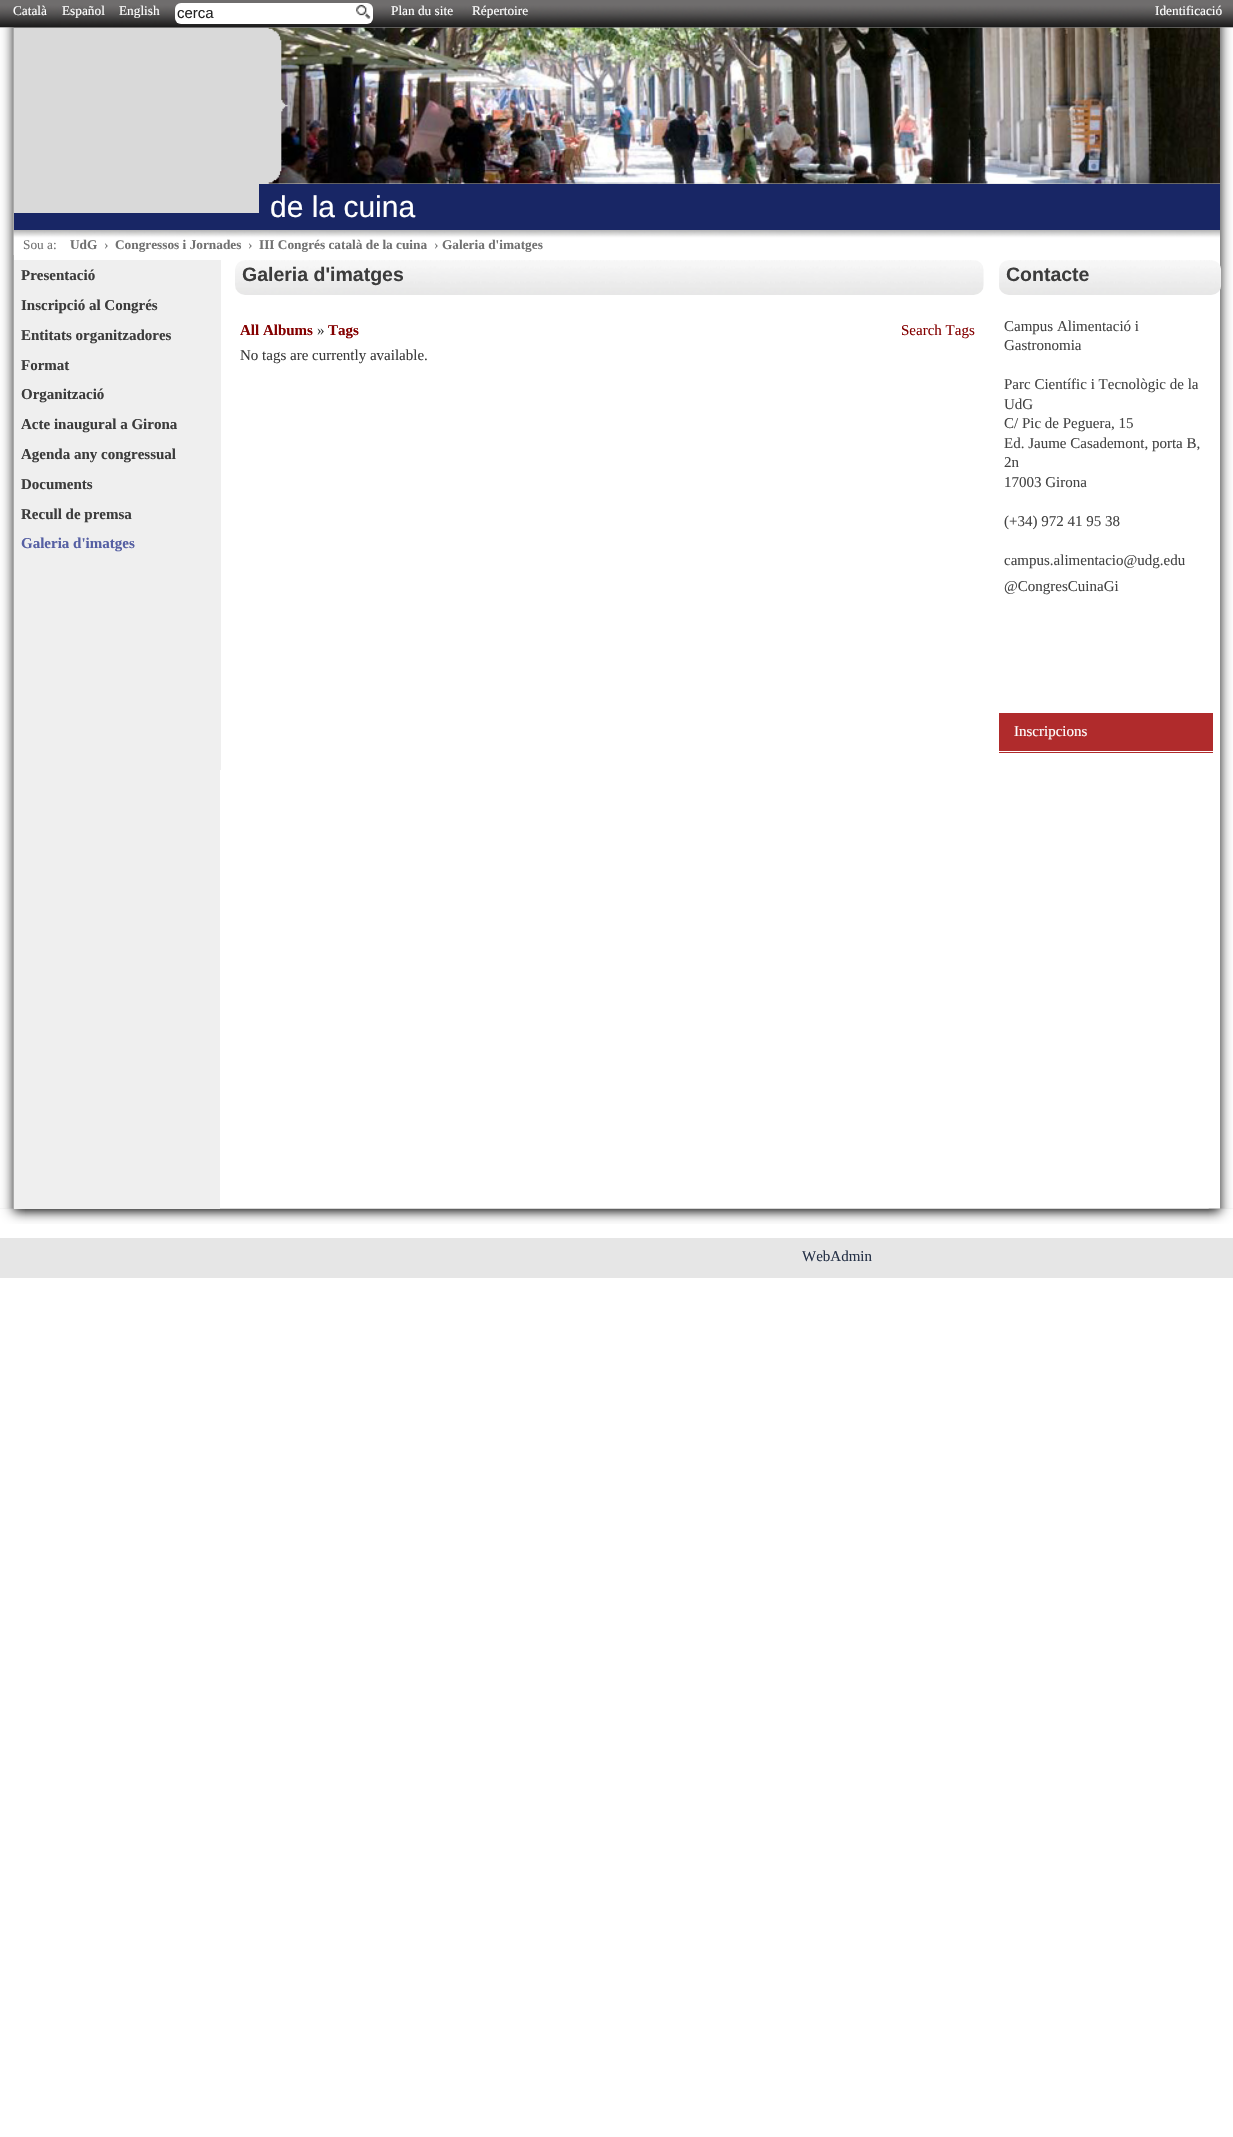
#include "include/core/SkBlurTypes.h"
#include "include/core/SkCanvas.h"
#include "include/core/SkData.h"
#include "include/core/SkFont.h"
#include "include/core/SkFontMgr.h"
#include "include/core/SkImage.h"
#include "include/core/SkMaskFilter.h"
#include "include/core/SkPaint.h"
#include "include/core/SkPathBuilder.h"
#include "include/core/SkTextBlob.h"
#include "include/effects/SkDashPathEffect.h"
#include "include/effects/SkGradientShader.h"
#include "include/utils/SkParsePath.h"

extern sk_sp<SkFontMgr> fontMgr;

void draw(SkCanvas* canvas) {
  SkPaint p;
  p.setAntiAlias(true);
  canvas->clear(SK_ColorWHITE);
  p.setColor(SkColorSetRGB(204, 204, 204));
  canvas->drawRect(SkRect::MakeLTRB(0, 27, 1233, 28), p);
  canvas->drawImageRect(SkImages::DeferredFromEncodedData(SkData::MakeFromFileName("images/1.png")), SkRect::MakeLTRB(0, 0, 1233, 28), SkSamplingOptions());
  p.setColor(SK_ColorWHITE);
  canvas->drawRoundRect(SkRect::MakeLTRB(175, 3, 373, 24), 6, 6, p);
  canvas->drawImageRect(SkImages::DeferredFromEncodedData(SkData::MakeFromFileName("images/2.png")), SkRect::MakeLTRB(356, 4, 371, 19), SkSamplingOptions());
  canvas->drawImageRect(SkImages::DeferredFromEncodedData(SkData::MakeFromFileName("images/3.png")), SkRect::MakeLTRB(0, 1208, 1233, 1224), SkSamplingOptions());
  canvas->drawImageRect(SkImages::DeferredFromEncodedData(SkData::MakeFromFileName("images/4.png")), SkRect::MakeLTRB(0, 1208, 25, 1224), SkSamplingOptions());
  canvas->drawImageRect(SkImages::DeferredFromEncodedData(SkData::MakeFromFileName("images/5.png")), SkRect::MakeLTRB(1208, 1208, 1233, 1224), SkSamplingOptions());
  canvas->drawImageRect(SkImages::DeferredFromEncodedData(SkData::MakeFromFileName("images/6.png")), SkRect::MakeLTRB(0, 27, 14, 1209), SkSamplingOptions());
  canvas->drawImageRect(SkImages::DeferredFromEncodedData(SkData::MakeFromFileName("images/7.png")), SkRect::MakeLTRB(1220, 27, 1233, 1209), SkSamplingOptions());
  p.setColor(SkColorSetRGB(24, 38, 101));
  canvas->drawRect(SkRect::MakeLTRB(14, 184, 1220, 230), p);
  p.setColor(SkColorSetRGB(217, 217, 217));
  canvas->drawRect(SkRect::MakeLTRB(14, 28, 259, 213), p);
  canvas->drawRect(SkRect::MakeLTRB(259, 28, 1220, 184), p);
  canvas->drawImageRect(SkImages::DeferredFromEncodedData(SkData::MakeFromFileName("images/8.png")), SkRect::MakeLTRB(268, 27, 1220, 184), SkSamplingOptions());
  canvas->drawImageRect(SkImages::DeferredFromEncodedData(SkData::MakeFromFileName("images/9.png")), SkRect::MakeLTRB(13, 230, 1220, 255), SkSamplingOptions());
  p.setColor(SkColorSetRGB(239, 239, 239));
  canvas->drawRect(SkRect::MakeLTRB(14, 260, 220, 1209), p);
  canvas->drawRect(SkRect::MakeLTRB(220, 260, 221, 770), p);
  canvas->drawImageRect(SkImages::DeferredFromEncodedData(SkData::MakeFromFileName("images/10.png")), SkRect::MakeLTRB(235, 260, 984, 295), SkSamplingOptions());
  canvas->drawImageRect(SkImages::DeferredFromEncodedData(SkData::MakeFromFileName("images/11.png")), SkRect::MakeLTRB(999, 260, 1222, 295), SkSamplingOptions());
  p.setColor(SkColorSetRGB(176, 43, 44));
  canvas->drawRect(SkRect::MakeLTRB(999, 713, 1213, 753), p);
  p.setColor(SK_ColorWHITE);
  canvas->drawRect(SkRect::MakeLTRB(999, 751, 1213, 752), p);
  p.setColor(SkColorSetRGB(230, 230, 230));
  canvas->drawRect(SkRect::MakeLTRB(0, 1238, 1233, 1278), p);
  SkFont font1(fontMgr->matchFamilyStyle("Liberation Serif", SkFontStyle::Normal()), 13.3f);
  font1.setSubpixel(true);
  p.setColor(SK_ColorWHITE);
  canvas->drawString("Català", 13, 15, font1, p);
  canvas->drawString("Español", 62, 15, font1, p);
  canvas->drawString("English", 119, 15, font1, p);
  SkFont font2(fontMgr->matchFamilyStyle("Liberation Sans", SkFontStyle::Normal()), 15);
  font2.setSubpixel(true);
  p.setColor(SkColorSetRGB(34, 34, 34));
  canvas->drawString("cerca", 177, 18, font2, p);
  p.setColor(SK_ColorWHITE);
  canvas->drawString("Plan du site", 391, 15, font1, p);
  canvas->drawString("Répertoire", 472, 15, font1, p);
  canvas->drawString("Identificació", 1155, 15, font1, p);
  SkFont font3(fontMgr->matchFamilyStyle("Liberation Sans", SkFontStyle::Normal()), 30);
  font3.setSubpixel(true);
  canvas->drawString("de la cuina", 270, 217, font3, p);
  p.setColor(SkColorSetRGB(113, 113, 113));
  canvas->drawString("Sou a:", 23, 249, font1, p);
  SkFont font4(fontMgr->matchFamilyStyle("Liberation Serif", SkFontStyle::Bold()), 13.3f);
  font4.setSubpixel(true);
  canvas->drawString("UdG", 70, 249, font4, p);
  canvas->drawString("›", 104, 249, font1, p);
  canvas->drawString("Congressos i Jornades", 115, 249, font4, p);
  canvas->drawString("›", 248, 249, font1, p);
  canvas->drawString("III Congrés català de la cuina", 259, 249, font4, p);
  canvas->drawString("›", 434, 249, font1, p);
  canvas->drawString("Galeria d'imatges", 442, 249, font4, p);
  SkFont font5(fontMgr->matchFamilyStyle("Liberation Serif", SkFontStyle::Bold()), 15);
  font5.setSubpixel(true);
  p.setColor(SkColorSetRGB(60, 60, 60));
  canvas->drawString("Presentació", 21, 280, font5, p);
  canvas->drawString("Inscripció al Congrés", 21, 310, font5, p);
  canvas->drawString("Entitats organitzadores", 21, 340, font5, p);
  canvas->drawString("Format", 21, 370, font5, p);
  canvas->drawString("Organització", 21, 399, font5, p);
  canvas->drawString("Acte inaugural a Girona", 21, 429, font5, p);
  canvas->drawString("Agenda any congressual", 21, 459, font5, p);
  canvas->drawString("Documents", 21, 489, font5, p);
  canvas->drawString("Recull de premsa", 21, 519, font5, p);
  p.setColor(SkColorSetRGB(85, 95, 163));
  canvas->drawString("Galeria d'imatges", 21, 548, font5, p);
  SkFont font6(fontMgr->matchFamilyStyle("Liberation Sans", SkFontStyle::Bold()), 19.5f);
  font6.setSubpixel(true);
  p.setColor(SkColorSetRGB(60, 60, 60));
  canvas->drawString("Galeria d'imatges", 242, 281, font6, p);
  p.setColor(SkColorSetRGB(132, 0, 0));
  canvas->drawString("All Albums", 240, 335, font5, p);
  SkFont font7(fontMgr->matchFamilyStyle("Liberation Serif", SkFontStyle::Normal()), 15);
  font7.setSubpixel(true);
  p.setColor(SkColorSetRGB(60, 60, 60));
  canvas->drawString("»", 317, 335, font7, p);
  p.setColor(SkColorSetRGB(132, 0, 0));
  canvas->drawString("Tags", 328, 335, font5, p);
  canvas->drawString("Search Tags", 901, 335, font7, p);
  p.setColor(SkColorSetRGB(60, 60, 60));
  canvas->drawString("No tags are currently available.", 240, 360, font7, p);
  canvas->drawString("Contacte", 1006, 281, font6, p);
  p.setColor(SkColorSetRGB(68, 68, 68));
  canvas->drawString("Campus Alimentació i", 1004, 331, font7, p);
  canvas->drawString("Gastronomia", 1004, 350, font7, p);
  canvas->drawString("Parc Científic i Tecnològic de la", 1004, 389, font7, p);
  canvas->drawString("UdG", 1004, 409, font7, p);
  canvas->drawString("C/ Pic de Peguera, 15", 1004, 428, font7, p);
  canvas->drawString("Ed. Jaume Casademont, porta B,", 1004, 448, font7, p);
  canvas->drawString("2n", 1004, 467, font7, p);
  canvas->drawString("17003 Girona", 1004, 487, font7, p);
  canvas->drawString("(+34) 972 41 95 38", 1004, 526, font7, p);
  canvas->drawString("campus.alimentacio@udg.edu", 1004, 565, font7, p);
  canvas->drawString("@CongresCuinaGi", 1004, 591, font7, p);
  p.setColor(SK_ColorWHITE);
  canvas->drawString("Inscripcions", 1014, 736, font7, p);
  p.setColor(SkColorSetRGB(38, 50, 72));
  canvas->drawString("WebAdmin", 802, 1261, font7, p);
}
